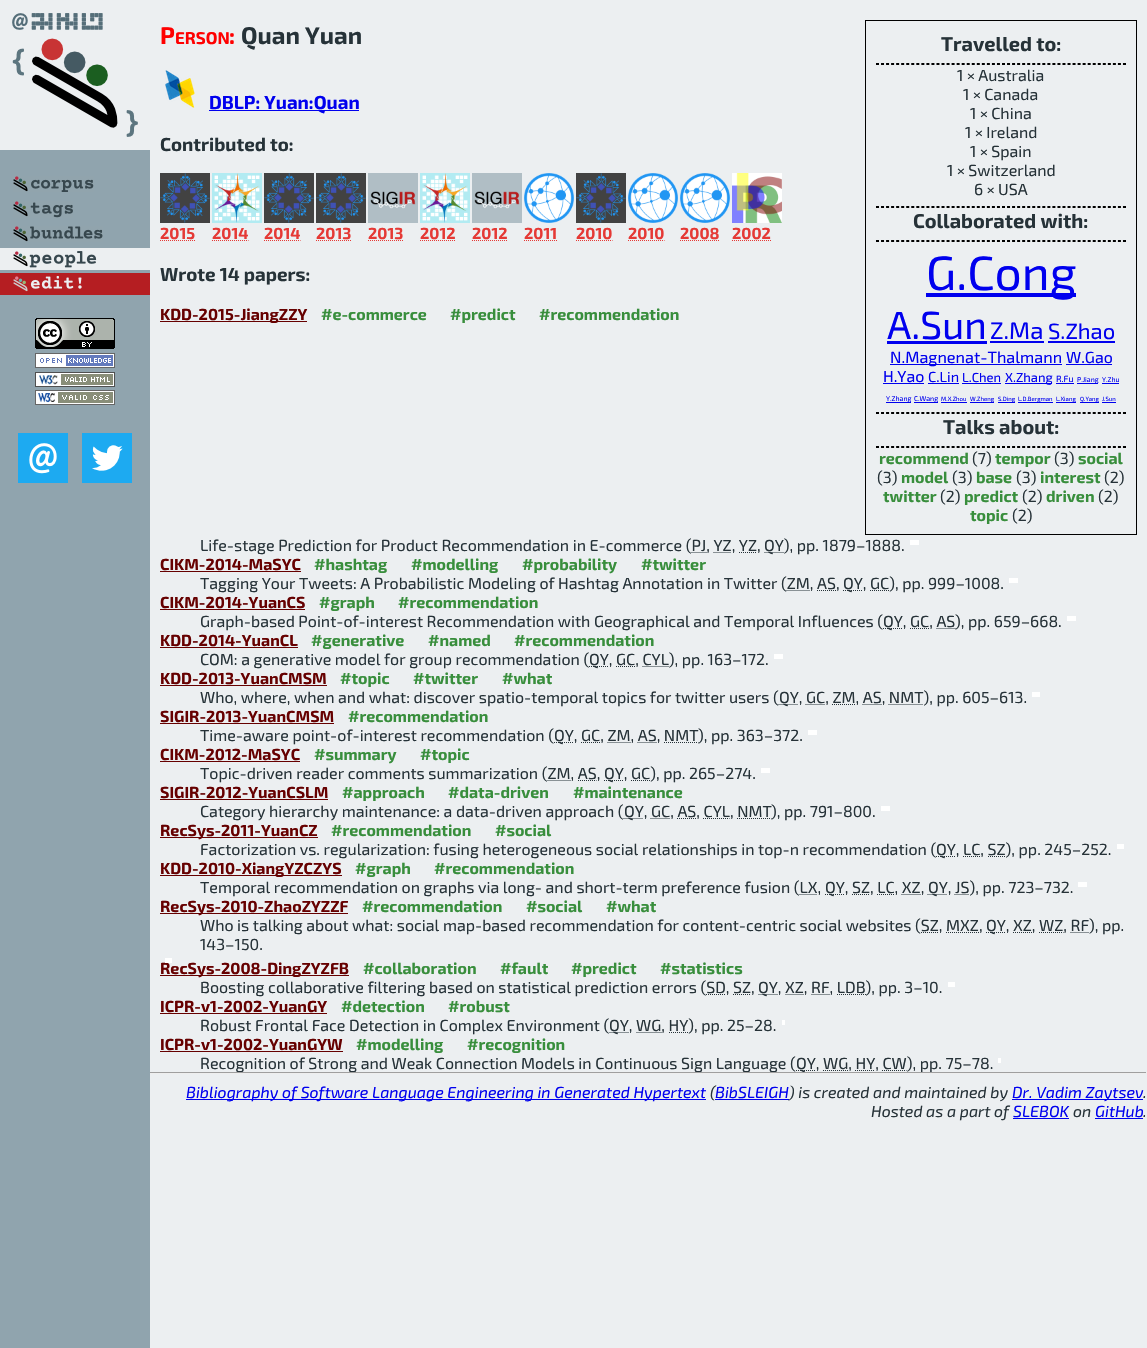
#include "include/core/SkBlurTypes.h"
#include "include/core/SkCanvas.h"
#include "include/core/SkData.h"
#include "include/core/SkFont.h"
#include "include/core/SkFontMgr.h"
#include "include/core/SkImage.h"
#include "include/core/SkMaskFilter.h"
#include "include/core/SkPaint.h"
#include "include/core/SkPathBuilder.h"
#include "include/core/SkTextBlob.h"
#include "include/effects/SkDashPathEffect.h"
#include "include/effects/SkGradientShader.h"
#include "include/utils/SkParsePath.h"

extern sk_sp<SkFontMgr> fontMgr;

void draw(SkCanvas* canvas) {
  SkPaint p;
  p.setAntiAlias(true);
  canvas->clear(SkColorSetRGB(236, 239, 241));
  p.setColor(SkColorSetRGB(144, 164, 174));
  canvas->drawRect(SkRect::MakeLTRB(0, 150, 150, 1348), p);
  canvas->drawImageRect(SkImages::DeferredFromEncodedData(SkData::MakeFromFileName("images/1.png")), SkRect::MakeLTRB(0, 0, 150, 150), SkSamplingOptions());
  canvas->drawImageRect(SkImages::DeferredFromEncodedData(SkData::MakeFromFileName("images/2.png")), SkRect::MakeLTRB(13, 176, 94, 192), SkSamplingOptions());
  canvas->drawImageRect(SkImages::DeferredFromEncodedData(SkData::MakeFromFileName("images/3.png")), SkRect::MakeLTRB(13, 201, 73, 218), SkSamplingOptions());
  canvas->drawImageRect(SkImages::DeferredFromEncodedData(SkData::MakeFromFileName("images/4.png")), SkRect::MakeLTRB(13, 226, 103, 242), SkSamplingOptions());
  canvas->drawImageRect(SkImages::DeferredFromEncodedData(SkData::MakeFromFileName("images/5.png")), SkRect::MakeLTRB(0, 248, 150, 270), SkSamplingOptions());
  canvas->drawImageRect(SkImages::DeferredFromEncodedData(SkData::MakeFromFileName("images/6.png")), SkRect::MakeLTRB(0, 273, 150, 295), SkSamplingOptions());
  canvas->drawImageRect(SkImages::DeferredFromEncodedData(SkData::MakeFromFileName("images/7.png")), SkRect::MakeLTRB(35, 318, 115, 349), SkSamplingOptions());
  canvas->drawImageRect(SkImages::DeferredFromEncodedData(SkData::MakeFromFileName("images/8.png")), SkRect::MakeLTRB(35, 353, 115, 368), SkSamplingOptions());
  canvas->drawImageRect(SkImages::DeferredFromEncodedData(SkData::MakeFromFileName("images/9.png")), SkRect::MakeLTRB(35, 372, 115, 387), SkSamplingOptions());
  canvas->drawImageRect(SkImages::DeferredFromEncodedData(SkData::MakeFromFileName("images/10.png")), SkRect::MakeLTRB(35, 390, 115, 405), SkSamplingOptions());
  canvas->drawImageRect(SkImages::DeferredFromEncodedData(SkData::MakeFromFileName("images/11.png")), SkRect::MakeLTRB(18, 433, 68, 483), SkSamplingOptions());
  canvas->drawImageRect(SkImages::DeferredFromEncodedData(SkData::MakeFromFileName("images/12.png")), SkRect::MakeLTRB(82, 433, 132, 483), SkSamplingOptions());
  p.setStyle(SkPaint::kStroke_Style);
  p.setStrokeWidth(1);
  p.setColor(SK_ColorBLACK);
  canvas->drawRect(SkRect::MakeLTRB(865.5f, 20.5f, 1136.5f, 534.5f), p);
  p.setPathEffect(SkDashPathEffect::Make({{3, 2.04f}}, 0));
  canvas->drawPath(SkPathBuilder().moveTo(876, 63.5f).lineTo(1126, 63.5f).detach(), p);
  p.setPathEffect(nullptr);
  p.setStyle(SkPaint::kFill_Style);
  canvas->drawRect(SkRect::MakeLTRB(1125, 63, 1126, 65), p);
  p.setStyle(SkPaint::kStroke_Style);
  p.setPathEffect(SkDashPathEffect::Make({{3, 2.04f}}, 0));
  canvas->drawPath(SkPathBuilder().moveTo(876, 64.5f).lineTo(1126, 64.5f).detach(), p);
  p.setPathEffect(nullptr);
  p.setPathEffect(SkDashPathEffect::Make({{3, 2.04f}}, 0));
  canvas->drawPath(SkPathBuilder().moveTo(876, 206.5f).lineTo(1126, 206.5f).detach(), p);
  p.setPathEffect(nullptr);
  p.setStyle(SkPaint::kFill_Style);
  canvas->drawRect(SkRect::MakeLTRB(1125, 206, 1126, 208), p);
  p.setStyle(SkPaint::kStroke_Style);
  p.setPathEffect(SkDashPathEffect::Make({{3, 2.04f}}, 0));
  canvas->drawPath(SkPathBuilder().moveTo(876, 207.5f).lineTo(1126, 207.5f).detach(), p);
  p.setPathEffect(nullptr);
  p.setPathEffect(SkDashPathEffect::Make({{3, 2.04f}}, 0));
  canvas->drawPath(SkPathBuilder().moveTo(876, 240.5f).lineTo(1126, 240.5f).detach(), p);
  p.setPathEffect(nullptr);
  p.setStyle(SkPaint::kFill_Style);
  canvas->drawRect(SkRect::MakeLTRB(1125, 240, 1126, 242), p);
  p.setStyle(SkPaint::kStroke_Style);
  p.setPathEffect(SkDashPathEffect::Make({{3, 2.04f}}, 0));
  canvas->drawPath(SkPathBuilder().moveTo(876, 241.5f).lineTo(1126, 241.5f).detach(), p);
  p.setPathEffect(nullptr);
  p.setStyle(SkPaint::kFill_Style);
  p.setColor(SkColorSetRGB(0, 0, 238));
  canvas->drawRect(SkRect::MakeLTRB(926, 293, 1076, 297), p);
  canvas->drawRect(SkRect::MakeLTRB(887, 341, 987, 344), p);
  canvas->drawRect(SkRect::MakeLTRB(990, 341, 1044, 343), p);
  canvas->drawRect(SkRect::MakeLTRB(1048, 341, 1115, 343), p);
  canvas->drawRect(SkRect::MakeLTRB(890, 364, 1062, 365), p);
  canvas->drawRect(SkRect::MakeLTRB(1066, 364, 1112, 365), p);
  canvas->drawRect(SkRect::MakeLTRB(883, 383, 924, 384), p);
  canvas->drawRect(SkRect::MakeLTRB(928, 383, 959, 384), p);
  canvas->drawRect(SkRect::MakeLTRB(962, 383, 1001, 384), p);
  canvas->drawRect(SkRect::MakeLTRB(1005, 383, 1052, 384), p);
  canvas->drawRect(SkRect::MakeLTRB(1056, 383, 1074, 384), p);
  canvas->drawRect(SkRect::MakeLTRB(1077, 383, 1098, 384), p);
  canvas->drawRect(SkRect::MakeLTRB(1102, 383, 1119, 384), p);
  canvas->drawRect(SkRect::MakeLTRB(886, 402, 911, 403), p);
  canvas->drawRect(SkRect::MakeLTRB(914, 402, 938, 403), p);
  canvas->drawRect(SkRect::MakeLTRB(941, 402, 967, 403), p);
  canvas->drawRect(SkRect::MakeLTRB(970, 402, 994, 403), p);
  canvas->drawRect(SkRect::MakeLTRB(998, 402, 1015, 403), p);
  canvas->drawRect(SkRect::MakeLTRB(1018, 402, 1053, 403), p);
  canvas->drawRect(SkRect::MakeLTRB(1056, 402, 1076, 403), p);
  canvas->drawRect(SkRect::MakeLTRB(1080, 402, 1099, 403), p);
  canvas->drawRect(SkRect::MakeLTRB(1102, 402, 1116, 403), p);
  p.setStyle(SkPaint::kStroke_Style);
  p.setColor(SK_ColorBLACK);
  p.setPathEffect(SkDashPathEffect::Make({{3, 2.04f}}, 0));
  canvas->drawPath(SkPathBuilder().moveTo(876, 412.5f).lineTo(1126, 412.5f).detach(), p);
  p.setPathEffect(nullptr);
  p.setStyle(SkPaint::kFill_Style);
  canvas->drawRect(SkRect::MakeLTRB(1125, 412, 1126, 414), p);
  p.setStyle(SkPaint::kStroke_Style);
  p.setPathEffect(SkDashPathEffect::Make({{3, 2.04f}}, 0));
  canvas->drawPath(SkPathBuilder().moveTo(876, 413.5f).lineTo(1126, 413.5f).detach(), p);
  p.setPathEffect(nullptr);
  p.setPathEffect(SkDashPathEffect::Make({{3, 2.04f}}, 0));
  canvas->drawPath(SkPathBuilder().moveTo(876, 446.5f).lineTo(1126, 446.5f).detach(), p);
  p.setPathEffect(nullptr);
  p.setStyle(SkPaint::kFill_Style);
  canvas->drawRect(SkRect::MakeLTRB(1125, 446, 1126, 448), p);
  p.setStyle(SkPaint::kStroke_Style);
  p.setPathEffect(SkDashPathEffect::Make({{3, 2.04f}}, 0));
  canvas->drawPath(SkPathBuilder().moveTo(876, 447.5f).lineTo(1126, 447.5f).detach(), p);
  p.setPathEffect(nullptr);
  canvas->drawImageRect(SkImages::DeferredFromEncodedData(SkData::MakeFromFileName("images/13.png")), SkRect::MakeLTRB(165, 70, 195, 108), SkSamplingOptions());
  p.setStyle(SkPaint::kFill_Style);
  p.setColor(SkColorSetRGB(0, 0, 238));
  canvas->drawRect(SkRect::MakeLTRB(209, 110, 359, 111), p);
  canvas->drawImageRect(SkImages::DeferredFromEncodedData(SkData::MakeFromFileName("images/14.png")), SkRect::MakeLTRB(160, 173, 210, 223), SkSamplingOptions());
  p.setStyle(SkPaint::kStroke_Style);
  p.setColor(SkColorSetRGB(229, 57, 53));
  p.setPathEffect(SkDashPathEffect::Make({{1, 1}}, 0));
  canvas->drawPath(SkPathBuilder().moveTo(160, 240.5f).lineTo(195, 240.5f).detach(), p);
  p.setPathEffect(nullptr);
  canvas->drawImageRect(SkImages::DeferredFromEncodedData(SkData::MakeFromFileName("images/15.png")), SkRect::MakeLTRB(212, 173, 262, 223), SkSamplingOptions());
  p.setPathEffect(SkDashPathEffect::Make({{1, 1}}, 0));
  canvas->drawPath(SkPathBuilder().moveTo(212, 240.5f).lineTo(248.5f, 240.5f).detach(), p);
  p.setPathEffect(nullptr);
  canvas->drawImageRect(SkImages::DeferredFromEncodedData(SkData::MakeFromFileName("images/14.png")), SkRect::MakeLTRB(264, 173, 314, 223), SkSamplingOptions());
  p.setPathEffect(SkDashPathEffect::Make({{1, 1}}, 0));
  canvas->drawPath(SkPathBuilder().moveTo(264, 240.5f).lineTo(300.5f, 240.5f).detach(), p);
  p.setPathEffect(nullptr);
  canvas->drawImageRect(SkImages::DeferredFromEncodedData(SkData::MakeFromFileName("images/14.png")), SkRect::MakeLTRB(316, 173, 366, 223), SkSamplingOptions());
  p.setPathEffect(SkDashPathEffect::Make({{1, 1}}, 0));
  canvas->drawPath(SkPathBuilder().moveTo(316, 240.5f).lineTo(351.5f, 240.5f).detach(), p);
  p.setPathEffect(nullptr);
  canvas->drawImageRect(SkImages::DeferredFromEncodedData(SkData::MakeFromFileName("images/16.png")), SkRect::MakeLTRB(368, 173, 418, 223), SkSamplingOptions());
  p.setPathEffect(SkDashPathEffect::Make({{1, 1}}, 0));
  canvas->drawPath(SkPathBuilder().moveTo(368, 240.5f).lineTo(403.5f, 240.5f).detach(), p);
  p.setPathEffect(nullptr);
  canvas->drawImageRect(SkImages::DeferredFromEncodedData(SkData::MakeFromFileName("images/15.png")), SkRect::MakeLTRB(420, 173, 470, 223), SkSamplingOptions());
  p.setPathEffect(SkDashPathEffect::Make({{1, 1}}, 0));
  canvas->drawPath(SkPathBuilder().moveTo(420, 240.5f).lineTo(455.5f, 240.5f).detach(), p);
  p.setPathEffect(nullptr);
  canvas->drawImageRect(SkImages::DeferredFromEncodedData(SkData::MakeFromFileName("images/16.png")), SkRect::MakeLTRB(472, 173, 522, 223), SkSamplingOptions());
  p.setPathEffect(SkDashPathEffect::Make({{1, 1}}, 0));
  canvas->drawPath(SkPathBuilder().moveTo(472, 240.5f).lineTo(507.5f, 240.5f).detach(), p);
  p.setPathEffect(nullptr);
  canvas->drawImageRect(SkImages::DeferredFromEncodedData(SkData::MakeFromFileName("images/17.png")), SkRect::MakeLTRB(524, 173, 574, 223), SkSamplingOptions());
  p.setPathEffect(SkDashPathEffect::Make({{1, 1}}, 0));
  canvas->drawPath(SkPathBuilder().moveTo(524, 240.5f).lineTo(557, 240.5f).detach(), p);
  p.setPathEffect(nullptr);
  canvas->drawImageRect(SkImages::DeferredFromEncodedData(SkData::MakeFromFileName("images/14.png")), SkRect::MakeLTRB(576, 173, 626, 223), SkSamplingOptions());
  p.setPathEffect(SkDashPathEffect::Make({{1, 1}}, 0));
  canvas->drawPath(SkPathBuilder().moveTo(576, 240.5f).lineTo(612.5f, 240.5f).detach(), p);
  p.setPathEffect(nullptr);
  canvas->drawImageRect(SkImages::DeferredFromEncodedData(SkData::MakeFromFileName("images/17.png")), SkRect::MakeLTRB(628, 173, 678, 223), SkSamplingOptions());
  p.setPathEffect(SkDashPathEffect::Make({{1, 1}}, 0));
  canvas->drawPath(SkPathBuilder().moveTo(628, 240.5f).lineTo(664.5f, 240.5f).detach(), p);
  p.setPathEffect(nullptr);
  canvas->drawImageRect(SkImages::DeferredFromEncodedData(SkData::MakeFromFileName("images/17.png")), SkRect::MakeLTRB(680, 173, 730, 223), SkSamplingOptions());
  p.setPathEffect(SkDashPathEffect::Make({{1, 1}}, 0));
  canvas->drawPath(SkPathBuilder().moveTo(680, 240.5f).lineTo(719.5f, 240.5f).detach(), p);
  p.setPathEffect(nullptr);
  canvas->drawImageRect(SkImages::DeferredFromEncodedData(SkData::MakeFromFileName("images/18.png")), SkRect::MakeLTRB(732, 173, 782, 223), SkSamplingOptions());
  p.setPathEffect(SkDashPathEffect::Make({{1, 1}}, 0));
  canvas->drawPath(SkPathBuilder().moveTo(732, 240.5f).lineTo(771, 240.5f).detach(), p);
  p.setPathEffect(nullptr);
  p.setStyle(SkPaint::kFill_Style);
  p.setColor(SkColorSetRGB(102, 0, 0));
  canvas->drawRect(SkRect::MakeLTRB(160, 321, 307, 322), p);
  p.setStyle(SkPaint::kStroke_Style);
  p.setColor(SkColorSetRGB(38, 50, 56));
  p.setPathEffect(SkDashPathEffect::Make({{1, 1}}, 0));
  canvas->drawPath(SkPathBuilder().moveTo(691.5f, 552.5f).lineTo(706.5f, 552.5f).moveTo(713.5f, 552.5f).lineTo(731.5f, 552.5f).detach(), p);
  p.setPathEffect(nullptr);
  p.setPathEffect(SkDashPathEffect::Make({{1, 1}}, 0));
  canvas->drawPath(SkPathBuilder().moveTo(739, 552.5f).lineTo(757, 552.5f).moveTo(764.5f, 552.5f).lineTo(784, 552.5f).detach(), p);
  p.setPathEffect(nullptr);
  p.setStyle(SkPaint::kFill_Style);
  p.setColor(SK_ColorWHITE);
  canvas->drawRect(SkRect::MakeLTRB(910, 540, 919, 545), p);
  p.setColor(SkColorSetRGB(102, 0, 0));
  canvas->drawRect(SkRect::MakeLTRB(160, 571, 301, 572), p);
  p.setStyle(SkPaint::kStroke_Style);
  p.setColor(SkColorSetRGB(38, 50, 56));
  p.setPathEffect(SkDashPathEffect::Make({{1, 1}}, 0));
  canvas->drawPath(SkPathBuilder().moveTo(843, 590.5f).lineTo(863, 590.5f).detach(), p);
  p.setPathEffect(nullptr);
  p.setPathEffect(SkDashPathEffect::Make({{1, 1}}, 0));
  canvas->drawPath(SkPathBuilder().moveTo(786.5f, 590.5f).lineTo(810, 590.5f).moveTo(817, 590.5f).lineTo(836, 590.5f).detach(), p);
  p.setPathEffect(nullptr);
  p.setPathEffect(SkDashPathEffect::Make({{1, 1}}, 0));
  canvas->drawPath(SkPathBuilder().moveTo(870, 590.5f).lineTo(889.5f, 590.5f).detach(), p);
  p.setPathEffect(nullptr);
  p.setStyle(SkPaint::kFill_Style);
  p.setColor(SK_ColorWHITE);
  canvas->drawRect(SkRect::MakeLTRB(1009, 578, 1018, 583), p);
  p.setColor(SkColorSetRGB(102, 0, 0));
  canvas->drawRect(SkRect::MakeLTRB(160, 609, 305, 610), p);
  p.setStyle(SkPaint::kStroke_Style);
  p.setColor(SkColorSetRGB(38, 50, 56));
  p.setPathEffect(SkDashPathEffect::Make({{1, 1}}, 0));
  canvas->drawPath(SkPathBuilder().moveTo(883, 628.5f).lineTo(903, 628.5f).detach(), p);
  p.setPathEffect(nullptr);
  p.setPathEffect(SkDashPathEffect::Make({{1, 1}}, 0));
  canvas->drawPath(SkPathBuilder().moveTo(910, 628.5f).lineTo(929.5f, 628.5f).moveTo(936.5f, 628.5f).lineTo(955.5f, 628.5f).detach(), p);
  p.setPathEffect(nullptr);
  p.setStyle(SkPaint::kFill_Style);
  p.setColor(SK_ColorWHITE);
  canvas->drawRect(SkRect::MakeLTRB(1067, 616, 1076, 621), p);
  p.setColor(SkColorSetRGB(102, 0, 0));
  canvas->drawRect(SkRect::MakeLTRB(160, 647, 298, 648), p);
  p.setStyle(SkPaint::kStroke_Style);
  p.setColor(SkColorSetRGB(38, 50, 56));
  p.setPathEffect(SkDashPathEffect::Make({{1, 1}}, 0));
  canvas->drawPath(SkPathBuilder().moveTo(589, 666.5f).lineTo(609, 666.5f).detach(), p);
  p.setPathEffect(nullptr);
  p.setPathEffect(SkDashPathEffect::Make({{1, 1}}, 0));
  canvas->drawPath(SkPathBuilder().moveTo(616, 666.5f).lineTo(635.5f, 666.5f).moveTo(642.5f, 666.5f).lineTo(669, 666.5f).detach(), p);
  p.setPathEffect(nullptr);
  p.setStyle(SkPaint::kFill_Style);
  p.setColor(SK_ColorWHITE);
  canvas->drawRect(SkRect::MakeLTRB(774, 654, 783, 659), p);
  p.setColor(SkColorSetRGB(102, 0, 0));
  canvas->drawRect(SkRect::MakeLTRB(160, 685, 327, 686), p);
  p.setStyle(SkPaint::kStroke_Style);
  p.setColor(SkColorSetRGB(38, 50, 56));
  p.setPathEffect(SkDashPathEffect::Make({{1, 1}}, 0));
  canvas->drawPath(SkPathBuilder().moveTo(778.5f, 704.5f).lineTo(798.5f, 704.5f).detach(), p);
  p.setPathEffect(nullptr);
  p.setPathEffect(SkDashPathEffect::Make({{1, 1}}, 0));
  canvas->drawPath(SkPathBuilder().moveTo(805.5f, 704.5f).lineTo(825, 704.5f).moveTo(832, 704.5f).lineTo(855, 704.5f).detach(), p);
  p.setPathEffect(nullptr);
  p.setPathEffect(SkDashPathEffect::Make({{1, 1}}, 0));
  canvas->drawPath(SkPathBuilder().moveTo(862.5f, 704.5f).lineTo(881.5f, 704.5f).moveTo(888.5f, 704.5f).lineTo(923, 704.5f).detach(), p);
  p.setPathEffect(nullptr);
  p.setStyle(SkPaint::kFill_Style);
  p.setColor(SK_ColorWHITE);
  canvas->drawRect(SkRect::MakeLTRB(1032, 692, 1040, 697), p);
  p.setColor(SkColorSetRGB(102, 0, 0));
  canvas->drawRect(SkRect::MakeLTRB(160, 723, 334, 724), p);
  p.setStyle(SkPaint::kStroke_Style);
  p.setColor(SkColorSetRGB(38, 50, 56));
  p.setPathEffect(SkDashPathEffect::Make({{1, 1}}, 0));
  canvas->drawPath(SkPathBuilder().moveTo(554, 742.5f).lineTo(574, 742.5f).detach(), p);
  p.setPathEffect(nullptr);
  p.setPathEffect(SkDashPathEffect::Make({{1, 1}}, 0));
  canvas->drawPath(SkPathBuilder().moveTo(581, 742.5f).lineTo(600, 742.5f).moveTo(607.5f, 742.5f).lineTo(630.5f, 742.5f).detach(), p);
  p.setPathEffect(nullptr);
  p.setPathEffect(SkDashPathEffect::Make({{1, 1}}, 0));
  canvas->drawPath(SkPathBuilder().moveTo(637.5f, 742.5f).lineTo(656.5f, 742.5f).moveTo(664, 742.5f).lineTo(698.5f, 742.5f).detach(), p);
  p.setPathEffect(nullptr);
  p.setStyle(SkPaint::kFill_Style);
  p.setColor(SK_ColorWHITE);
  canvas->drawRect(SkRect::MakeLTRB(808, 730, 817, 735), p);
  p.setColor(SkColorSetRGB(102, 0, 0));
  canvas->drawRect(SkRect::MakeLTRB(160, 761, 300, 762), p);
  p.setStyle(SkPaint::kStroke_Style);
  p.setColor(SkColorSetRGB(38, 50, 56));
  p.setPathEffect(SkDashPathEffect::Make({{1, 1}}, 0));
  canvas->drawPath(SkPathBuilder().moveTo(604, 780.5f).lineTo(623.5f, 780.5f).detach(), p);
  p.setPathEffect(nullptr);
  p.setPathEffect(SkDashPathEffect::Make({{1, 1}}, 0));
  canvas->drawPath(SkPathBuilder().moveTo(547.5f, 780.5f).lineTo(570.5f, 780.5f).moveTo(578, 780.5f).lineTo(596.5f, 780.5f).detach(), p);
  p.setPathEffect(nullptr);
  p.setPathEffect(SkDashPathEffect::Make({{1, 1}}, 0));
  canvas->drawPath(SkPathBuilder().moveTo(631, 780.5f).lineTo(650, 780.5f).detach(), p);
  p.setPathEffect(nullptr);
  p.setStyle(SkPaint::kFill_Style);
  p.setColor(SK_ColorWHITE);
  canvas->drawRect(SkRect::MakeLTRB(761, 768, 770, 773), p);
  p.setColor(SkColorSetRGB(102, 0, 0));
  canvas->drawRect(SkRect::MakeLTRB(160, 799, 328, 800), p);
  p.setStyle(SkPaint::kStroke_Style);
  p.setColor(SkColorSetRGB(38, 50, 56));
  p.setPathEffect(SkDashPathEffect::Make({{1, 1}}, 0));
  canvas->drawPath(SkPathBuilder().moveTo(623.5f, 818.5f).lineTo(643.5f, 818.5f).detach(), p);
  p.setPathEffect(nullptr);
  p.setPathEffect(SkDashPathEffect::Make({{1, 1}}, 0));
  canvas->drawPath(SkPathBuilder().moveTo(650.5f, 818.5f).lineTo(669.5f, 818.5f).moveTo(677, 818.5f).lineTo(696, 818.5f).detach(), p);
  p.setPathEffect(nullptr);
  p.setPathEffect(SkDashPathEffect::Make({{1, 1}}, 0));
  canvas->drawPath(SkPathBuilder().moveTo(703, 818.5f).lineTo(729.5f, 818.5f).detach(), p);
  p.setPathEffect(nullptr);
  p.setPathEffect(SkDashPathEffect::Make({{1, 1}}, 0));
  canvas->drawPath(SkPathBuilder().moveTo(737, 818.5f).lineTo(771.5f, 818.5f).detach(), p);
  p.setPathEffect(nullptr);
  p.setStyle(SkPaint::kFill_Style);
  p.setColor(SK_ColorWHITE);
  canvas->drawRect(SkRect::MakeLTRB(881, 806, 890, 811), p);
  p.setColor(SkColorSetRGB(102, 0, 0));
  canvas->drawRect(SkRect::MakeLTRB(160, 837, 318, 838), p);
  p.setStyle(SkPaint::kStroke_Style);
  p.setColor(SkColorSetRGB(38, 50, 56));
  p.setPathEffect(SkDashPathEffect::Make({{1, 1}}, 0));
  canvas->drawPath(SkPathBuilder().moveTo(936, 856.5f).lineTo(956, 856.5f).detach(), p);
  p.setPathEffect(nullptr);
  p.setPathEffect(SkDashPathEffect::Make({{1, 1}}, 0));
  canvas->drawPath(SkPathBuilder().moveTo(963, 856.5f).lineTo(980.5f, 856.5f).moveTo(988, 856.5f).lineTo(1006, 856.5f).detach(), p);
  p.setPathEffect(nullptr);
  p.setStyle(SkPaint::kFill_Style);
  p.setColor(SK_ColorWHITE);
  canvas->drawRect(SkRect::MakeLTRB(1117, 844, 1124, 849), p);
  p.setColor(SkColorSetRGB(102, 0, 0));
  canvas->drawRect(SkRect::MakeLTRB(160, 875, 342, 876), p);
  p.setStyle(SkPaint::kStroke_Style);
  p.setColor(SkColorSetRGB(38, 50, 56));
  p.setPathEffect(SkDashPathEffect::Make({{1, 1}}, 0));
  canvas->drawPath(SkPathBuilder().moveTo(799.5f, 894.5f).lineTo(817.5f, 894.5f).moveTo(825, 894.5f).lineTo(844.5f, 894.5f).detach(), p);
  p.setPathEffect(nullptr);
  p.setPathEffect(SkDashPathEffect::Make({{1, 1}}, 0));
  canvas->drawPath(SkPathBuilder().moveTo(852, 894.5f).lineTo(870, 894.5f).moveTo(877, 894.5f).lineTo(894.5f, 894.5f).detach(), p);
  p.setPathEffect(nullptr);
  p.setPathEffect(SkDashPathEffect::Make({{1, 1}}, 0));
  canvas->drawPath(SkPathBuilder().moveTo(901.5f, 894.5f).lineTo(920.5f, 894.5f).moveTo(927.5f, 894.5f).lineTo(947.5f, 894.5f).detach(), p);
  p.setPathEffect(nullptr);
  p.setPathEffect(SkDashPathEffect::Make({{1, 1}}, 0));
  canvas->drawPath(SkPathBuilder().moveTo(954.5f, 894.5f).lineTo(969, 894.5f).detach(), p);
  p.setPathEffect(nullptr);
  p.setStyle(SkPaint::kFill_Style);
  p.setColor(SK_ColorWHITE);
  canvas->drawRect(SkRect::MakeLTRB(1078, 882, 1087, 887), p);
  p.setColor(SkColorSetRGB(102, 0, 0));
  canvas->drawRect(SkRect::MakeLTRB(160, 913, 348, 914), p);
  p.setStyle(SkPaint::kStroke_Style);
  p.setColor(SkColorSetRGB(38, 50, 56));
  p.setPathEffect(SkDashPathEffect::Make({{1, 1}}, 0));
  canvas->drawPath(SkPathBuilder().moveTo(986, 932.5f).lineTo(1006, 932.5f).detach(), p);
  p.setPathEffect(nullptr);
  p.setPathEffect(SkDashPathEffect::Make({{1, 1}}, 0));
  canvas->drawPath(SkPathBuilder().moveTo(921, 932.5f).lineTo(939, 932.5f).moveTo(946, 932.5f).lineTo(979, 932.5f).detach(), p);
  p.setPathEffect(nullptr);
  p.setPathEffect(SkDashPathEffect::Make({{1, 1}}, 0));
  canvas->drawPath(SkPathBuilder().moveTo(1013, 932.5f).lineTo(1032, 932.5f).moveTo(1039, 932.5f).lineTo(1063.5f, 932.5f).detach(), p);
  p.setPathEffect(nullptr);
  p.setPathEffect(SkDashPathEffect::Make({{1, 1}}, 0));
  canvas->drawPath(SkPathBuilder().moveTo(1070.5f, 932.5f).lineTo(1089, 932.5f).detach(), p);
  p.setPathEffect(nullptr);
  p.setStyle(SkPaint::kFill_Style);
  p.setColor(SkColorSetRGB(102, 0, 0));
  canvas->drawRect(SkRect::MakeLTRB(160, 975, 349, 976), p);
  p.setStyle(SkPaint::kStroke_Style);
  p.setColor(SkColorSetRGB(38, 50, 56));
  p.setPathEffect(SkDashPathEffect::Make({{1, 1}}, 0));
  canvas->drawPath(SkPathBuilder().moveTo(758.5f, 994.5f).lineTo(778, 994.5f).detach(), p);
  p.setPathEffect(nullptr);
  p.setPathEffect(SkDashPathEffect::Make({{1, 1}}, 0));
  canvas->drawPath(SkPathBuilder().moveTo(706, 994.5f).lineTo(726, 994.5f).moveTo(733, 994.5f).lineTo(751, 994.5f).detach(), p);
  p.setPathEffect(nullptr);
  p.setPathEffect(SkDashPathEffect::Make({{1, 1}}, 0));
  canvas->drawPath(SkPathBuilder().moveTo(785.5f, 994.5f).lineTo(804, 994.5f).moveTo(811.5f, 994.5f).lineTo(830, 994.5f).detach(), p);
  p.setPathEffect(nullptr);
  p.setPathEffect(SkDashPathEffect::Make({{1, 1}}, 0));
  canvas->drawPath(SkPathBuilder().moveTo(837, 994.5f).lineTo(866, 994.5f).detach(), p);
  p.setPathEffect(nullptr);
  p.setStyle(SkPaint::kFill_Style);
  p.setColor(SK_ColorWHITE);
  canvas->drawRect(SkRect::MakeLTRB(948, 982, 955, 987), p);
  p.setColor(SkColorSetRGB(102, 0, 0));
  canvas->drawRect(SkRect::MakeLTRB(160, 1013, 327, 1014), p);
  p.setStyle(SkPaint::kStroke_Style);
  p.setColor(SkColorSetRGB(38, 50, 56));
  p.setPathEffect(SkDashPathEffect::Make({{1, 1}}, 0));
  canvas->drawPath(SkPathBuilder().moveTo(609.5f, 1032.5f).lineTo(629, 1032.5f).detach(), p);
  p.setPathEffect(nullptr);
  p.setPathEffect(SkDashPathEffect::Make({{1, 1}}, 0));
  canvas->drawPath(SkPathBuilder().moveTo(636.5f, 1032.5f).lineTo(661.5f, 1032.5f).moveTo(669, 1032.5f).lineTo(688.5f, 1032.5f).detach(), p);
  p.setPathEffect(nullptr);
  p.setStyle(SkPaint::kFill_Style);
  p.setColor(SK_ColorWHITE);
  canvas->drawRect(SkRect::MakeLTRB(782, 1020, 785, 1025), p);
  p.setColor(SkColorSetRGB(102, 0, 0));
  canvas->drawRect(SkRect::MakeLTRB(160, 1051, 343, 1052), p);
  p.setStyle(SkPaint::kStroke_Style);
  p.setColor(SkColorSetRGB(38, 50, 56));
  p.setPathEffect(SkDashPathEffect::Make({{1, 1}}, 0));
  canvas->drawPath(SkPathBuilder().moveTo(796, 1070.5f).lineTo(815.5f, 1070.5f).detach(), p);
  p.setPathEffect(nullptr);
  p.setPathEffect(SkDashPathEffect::Make({{1, 1}}, 0));
  canvas->drawPath(SkPathBuilder().moveTo(823, 1070.5f).lineTo(848, 1070.5f).moveTo(855, 1070.5f).lineTo(875, 1070.5f).detach(), p);
  p.setPathEffect(nullptr);
  p.setPathEffect(SkDashPathEffect::Make({{1, 1}}, 0));
  canvas->drawPath(SkPathBuilder().moveTo(882, 1070.5f).lineTo(906.5f, 1070.5f).detach(), p);
  p.setPathEffect(nullptr);
  p.setStyle(SkPaint::kFill_Style);
  p.setColor(SK_ColorWHITE);
  canvas->drawRect(SkRect::MakeLTRB(998, 1058, 1001, 1063), p);
  p.setColor(SkColorSetRGB(0, 0, 238));
  canvas->drawRect(SkRect::MakeLTRB(186, 1099, 706, 1100), p);
  canvas->drawRect(SkRect::MakeLTRB(1012, 1099, 1143, 1100), p);
  canvas->drawRect(SkRect::MakeLTRB(1013, 1118, 1069, 1119), p);
  canvas->drawRect(SkRect::MakeLTRB(1095, 1118, 1143, 1119), p);
  SkFont font1(fontMgr->matchFamilyStyle("Exo 2", SkFontStyle::Bold()), 24);
  font1.setSubpixel(true);
  p.setColor(SkColorSetRGB(255, 0, 0));
  canvas->drawString("P", 160, 44, font1, p);
  SkFont font2(fontMgr->matchFamilyStyle("Exo 2", SkFontStyle::Bold()), 17);
  font2.setSubpixel(true);
  canvas->drawString("ERSON", 175, 44, font2, p);
  canvas->drawString(":", 229, 44, font1, p);
  p.setColor(SkColorSetRGB(38, 50, 56));
  canvas->drawString("Quan Yuan", 241, 44, font1, p);
  SkFont font3(fontMgr->matchFamilyStyle("Exo 2", SkFontStyle::Bold()), 20);
  font3.setSubpixel(true);
  canvas->drawString("Travelled to:", 941, 51, font3, p);
  SkFont font4(fontMgr->matchFamilyStyle("Exo 2", SkFontStyle::Normal()), 16);
  font4.setSubpixel(true);
  canvas->drawString("1 × Australia", 957, 81, font4, p);
  canvas->drawString("1 × Canada", 963, 100, font4, p);
  canvas->drawString("1 × China", 970, 119, font4, p);
  canvas->drawString("1 × Ireland", 965, 138, font4, p);
  canvas->drawString("1 × Spain", 970, 157, font4, p);
  canvas->drawString("1 × Switzerland", 947, 176, font4, p);
  canvas->drawString("6 × USA", 974, 195, font4, p);
  canvas->drawString("Collaborated with:", 913, 228, font3, p);
  SkFont font5(fontMgr->matchFamilyStyle("Exo 2", SkFontStyle::Normal()), 48);
  font5.setSubpixel(true);
  p.setColor(SkColorSetRGB(0, 0, 238));
  canvas->drawString("G.Cong", 926, 290, font5, p);
  SkFont font6(fontMgr->matchFamilyStyle("Exo 2", SkFontStyle::Normal()), 39);
  font6.setSubpixel(true);
  canvas->drawString("A.Sun", 887, 339, font6, p);
  SkFont font7(fontMgr->matchFamilyStyle("Exo 2", SkFontStyle::Normal()), 24);
  font7.setSubpixel(true);
  canvas->drawString("Z.Ma", 990, 339, font7, p);
  SkFont font8(fontMgr->matchFamilyStyle("Exo 2", SkFontStyle::Normal()), 22);
  font8.setSubpixel(true);
  canvas->drawString("S.Zhao", 1048, 339, font8, p);
  SkFont font9(fontMgr->matchFamilyStyle("Exo 2", SkFontStyle::Normal()), 16.25f);
  font9.setSubpixel(true);
  canvas->drawString("N.Magnenat-Thalmann", 890, 363, font9, p);
  canvas->drawString("W.Gao", 1066, 363, font4, p);
  canvas->drawString("H.Yao", 883, 382, font4, p);
  SkFont font10(fontMgr->matchFamilyStyle("Exo 2", SkFontStyle::Normal()), 14.5f);
  font10.setSubpixel(true);
  canvas->drawString("C.Lin", 928, 382, font10, p);
  SkFont font11(fontMgr->matchFamilyStyle("Exo 2", SkFontStyle::Normal()), 13);
  font11.setSubpixel(true);
  canvas->drawString("L.Chen", 962, 382, font11, p);
  canvas->drawString("X.Zhang", 1005, 382, font11, p);
  SkFont font12(fontMgr->matchFamilyStyle("Exo 2", SkFontStyle::Normal()), 9);
  font12.setSubpixel(true);
  canvas->drawString("R.Fu", 1056, 382, font12, p);
  SkFont font13(fontMgr->matchFamilyStyle("Exo 2", SkFontStyle::Normal()), 7);
  font13.setSubpixel(true);
  canvas->drawString("P.Jiang", 1077, 382, font13, p);
  canvas->drawString("Y.Zhu", 1102, 382, font13, p);
  canvas->drawString("Y.Zhang", 886, 401, font13, p);
  canvas->drawString("C.Wang", 914, 401, font13, p);
  SkFont font14(fontMgr->matchFamilyStyle("Exo 2", SkFontStyle::Normal()), 6);
  font14.setSubpixel(true);
  canvas->drawString("M.X.Zhou", 941, 401, font14, p);
  canvas->drawString("W.Zheng", 970, 401, font14, p);
  canvas->drawString("S.Ding", 998, 401, font14, p);
  canvas->drawString("L.D.Bergman", 1018, 401, font14, p);
  canvas->drawString("L.Xiang", 1056, 401, font14, p);
  canvas->drawString("Q.Yang", 1080, 401, font14, p);
  canvas->drawString("J.Sun", 1102, 401, font14, p);
  p.setColor(SkColorSetRGB(38, 50, 56));
  canvas->drawString("Talks about:", 943, 434, font3, p);
  SkFont font15(fontMgr->matchFamilyStyle("Exo 2", SkFontStyle::Bold()), 16);
  font15.setSubpixel(true);
  p.setColor(SkColorSetRGB(56, 142, 60));
  canvas->drawString("recommend", 879, 464, font15, p);
  p.setColor(SkColorSetRGB(38, 50, 56));
  canvas->drawString("(7)", 972, 464, font4, p);
  p.setColor(SkColorSetRGB(56, 142, 60));
  canvas->drawString("tempor", 995, 464, font15, p);
  p.setColor(SkColorSetRGB(38, 50, 56));
  canvas->drawString("(3)", 1054, 464, font4, p);
  p.setColor(SkColorSetRGB(56, 142, 60));
  canvas->drawString("social", 1078, 464, font15, p);
  p.setColor(SkColorSetRGB(38, 50, 56));
  canvas->drawString("(3)", 877, 483, font4, p);
  p.setColor(SkColorSetRGB(56, 142, 60));
  canvas->drawString("model", 901, 483, font15, p);
  p.setColor(SkColorSetRGB(38, 50, 56));
  canvas->drawString("(3)", 952, 483, font4, p);
  p.setColor(SkColorSetRGB(56, 142, 60));
  canvas->drawString("base", 976, 483, font15, p);
  p.setColor(SkColorSetRGB(38, 50, 56));
  canvas->drawString("(3)", 1016, 483, font4, p);
  p.setColor(SkColorSetRGB(56, 142, 60));
  canvas->drawString("interest", 1040, 483, font15, p);
  p.setColor(SkColorSetRGB(38, 50, 56));
  canvas->drawString("(2)", 1104, 483, font4, p);
  p.setColor(SkColorSetRGB(56, 142, 60));
  canvas->drawString("twitter", 883, 502, font15, p);
  p.setColor(SkColorSetRGB(38, 50, 56));
  canvas->drawString("(2)", 940, 502, font4, p);
  p.setColor(SkColorSetRGB(56, 142, 60));
  canvas->drawString("predict", 964, 502, font15, p);
  p.setColor(SkColorSetRGB(38, 50, 56));
  canvas->drawString("(2)", 1022, 502, font4, p);
  p.setColor(SkColorSetRGB(56, 142, 60));
  canvas->drawString("driven", 1046, 502, font15, p);
  p.setColor(SkColorSetRGB(38, 50, 56));
  canvas->drawString("(2)", 1098, 502, font4, p);
  p.setColor(SkColorSetRGB(56, 142, 60));
  canvas->drawString("topic", 970, 521, font15, p);
  p.setColor(SkColorSetRGB(38, 50, 56));
  canvas->drawString("(2)", 1012, 521, font4, p);
  SkFont font16(fontMgr->matchFamilyStyle("Exo 2", SkFontStyle::Bold()), 18.75f);
  font16.setSubpixel(true);
  p.setColor(SkColorSetRGB(0, 0, 238));
  canvas->drawString("DBLP: Yuan:Quan", 209, 109, font16, p);
  p.setColor(SkColorSetRGB(38, 50, 56));
  canvas->drawString("Contributed to:", 160, 151, font16, p);
  p.setColor(SkColorSetRGB(229, 57, 53));
  canvas->drawString("2015", 160, 239, font15, p);
  canvas->drawString("2014", 212, 239, font15, p);
  canvas->drawString("2014", 264, 239, font15, p);
  canvas->drawString("2013", 316, 239, font15, p);
  canvas->drawString("2013", 368, 239, font15, p);
  canvas->drawString("2012", 420, 239, font15, p);
  canvas->drawString("2012", 472, 239, font15, p);
  canvas->drawString("2011", 524, 239, font15, p);
  canvas->drawString("2010", 576, 239, font15, p);
  canvas->drawString("2010", 628, 239, font15, p);
  canvas->drawString("2008", 680, 239, font15, p);
  canvas->drawString("2002", 732, 239, font15, p);
  p.setColor(SkColorSetRGB(38, 50, 56));
  canvas->drawString("Wrote 14 papers:", 160, 281, font16, p);
  p.setColor(SkColorSetRGB(102, 0, 0));
  canvas->drawString("KDD-2015-JiangZZY", 160, 320, font15, p);
  p.setColor(SkColorSetRGB(56, 142, 60));
  canvas->drawString("#e-commerce", 321, 320, font15, p);
  canvas->drawString("#predict", 450, 320, font15, p);
  canvas->drawString("#recommendation", 539, 320, font15, p);
  p.setColor(SkColorSetRGB(38, 50, 56));
  canvas->drawString("Life-stage Prediction for Product Recommendation in E-commerce (PJ, YZ, YZ,", 200, 551, font4, p);
  canvas->drawString("QY), pp. 1879–1888.", 764, 551, font4, p);
  p.setColor(SkColorSetRGB(102, 0, 0));
  canvas->drawString("CIKM-2014-MaSYC", 160, 570, font15, p);
  p.setColor(SkColorSetRGB(56, 142, 60));
  canvas->drawString("#hashtag", 314, 570, font15, p);
  canvas->drawString("#modelling", 411, 570, font15, p);
  canvas->drawString("#probability", 522, 570, font15, p);
  canvas->drawString("#twitter", 641, 570, font15, p);
  p.setColor(SkColorSetRGB(38, 50, 56));
  canvas->drawString("Tagging Your Tweets: A Probabilistic Modeling of Hashtag Annotation in Twitter (ZM, AS,", 200, 589, font4, p);
  canvas->drawString("QY, GC), pp. 999–1008.", 843, 589, font4, p);
  p.setColor(SkColorSetRGB(102, 0, 0));
  canvas->drawString("CIKM-2014-YuanCS", 160, 608, font15, p);
  p.setColor(SkColorSetRGB(56, 142, 60));
  canvas->drawString("#graph", 319, 608, font15, p);
  canvas->drawString("#recommendation", 398, 608, font15, p);
  p.setColor(SkColorSetRGB(38, 50, 56));
  canvas->drawString("Graph-based Point-of-interest Recommendation with Geographical and Temporal Influences (", 200, 627, font4, p);
  canvas->drawString("QY, GC, AS", 883, 627, font4, p);
  canvas->drawString("), pp. 659–668.", 955, 627, font4, p);
  p.setColor(SkColorSetRGB(102, 0, 0));
  canvas->drawString("KDD-2014-YuanCL", 160, 646, font15, p);
  p.setColor(SkColorSetRGB(56, 142, 60));
  canvas->drawString("#generative", 311, 646, font15, p);
  canvas->drawString("#named", 428, 646, font15, p);
  canvas->drawString("#recommendation", 514, 646, font15, p);
  p.setColor(SkColorSetRGB(38, 50, 56));
  canvas->drawString("COM: a generative model for group recommendation (", 200, 665, font4, p);
  canvas->drawString("QY, GC, CYL), pp. 163–172.", 589, 665, font4, p);
  p.setColor(SkColorSetRGB(102, 0, 0));
  canvas->drawString("KDD-2013-YuanCMSM", 160, 684, font15, p);
  p.setColor(SkColorSetRGB(56, 142, 60));
  canvas->drawString("#topic", 340, 684, font15, p);
  canvas->drawString("#twitter", 413, 684, font15, p);
  canvas->drawString("#what", 502, 684, font15, p);
  p.setColor(SkColorSetRGB(38, 50, 56));
  canvas->drawString("Who, where, when and what: discover spatio-temporal topics for twitter users (", 200, 703, font4, p);
  canvas->drawString("QY, GC, ZM, AS, NMT), pp. 605–613.", 779, 703, font4, p);
  p.setColor(SkColorSetRGB(102, 0, 0));
  canvas->drawString("SIGIR-2013-YuanCMSM", 160, 722, font15, p);
  p.setColor(SkColorSetRGB(56, 142, 60));
  canvas->drawString("#recommendation", 348, 722, font15, p);
  p.setColor(SkColorSetRGB(38, 50, 56));
  canvas->drawString("Time-aware point-of-interest recommendation (", 200, 741, font4, p);
  canvas->drawString("QY, GC, ZM, AS, NMT", 554, 741, font4, p);
  canvas->drawString("), pp. 363–372.", 698, 741, font4, p);
  p.setColor(SkColorSetRGB(102, 0, 0));
  canvas->drawString("CIKM-2012-MaSYC", 160, 760, font15, p);
  p.setColor(SkColorSetRGB(56, 142, 60));
  canvas->drawString("#summary", 314, 760, font15, p);
  canvas->drawString("#topic", 420, 760, font15, p);
  p.setColor(SkColorSetRGB(38, 50, 56));
  canvas->drawString("Topic-driven reader comments summarization (ZM, AS,", 200, 779, font4, p);
  canvas->drawString("QY, GC), pp. 265–274.", 604, 779, font4, p);
  p.setColor(SkColorSetRGB(102, 0, 0));
  canvas->drawString("SIGIR-2012-YuanCSLM", 160, 798, font15, p);
  p.setColor(SkColorSetRGB(56, 142, 60));
  canvas->drawString("#approach", 342, 798, font15, p);
  canvas->drawString("#data-driven", 448, 798, font15, p);
  canvas->drawString("#maintenance", 573, 798, font15, p);
  p.setColor(SkColorSetRGB(38, 50, 56));
  canvas->drawString("Category hierarchy maintenance: a data-driven approach (", 200, 817, font4, p);
  canvas->drawString("QY, GC, AS, CYL, NMT", 624, 817, font4, p);
  canvas->drawString("), pp. 791–800.", 771, 817, font4, p);
  p.setColor(SkColorSetRGB(102, 0, 0));
  canvas->drawString("RecSys-2011-YuanCZ", 160, 836, font15, p);
  p.setColor(SkColorSetRGB(56, 142, 60));
  canvas->drawString("#recommendation", 331, 836, font15, p);
  canvas->drawString("#social", 495, 836, font15, p);
  p.setColor(SkColorSetRGB(38, 50, 56));
  canvas->drawString("Factorization vs. regularization: fusing heterogeneous social relationships in top-n recommendation (", 200, 855, font4, p);
  canvas->drawString("QY, LC, SZ), pp. 245–252.", 936, 855, font4, p);
  p.setColor(SkColorSetRGB(102, 0, 0));
  canvas->drawString("KDD-2010-XiangYZCZYS", 160, 874, font15, p);
  p.setColor(SkColorSetRGB(56, 142, 60));
  canvas->drawString("#graph", 355, 874, font15, p);
  canvas->drawString("#recommendation", 434, 874, font15, p);
  p.setColor(SkColorSetRGB(38, 50, 56));
  canvas->drawString("Temporal recommendation on graphs via long- and short-term preference fusion (LX,", 200, 893, font4, p);
  canvas->drawString("QY, SZ, LC, XZ,", 825, 893, font4, p);
  canvas->drawString("QY, JS), pp. 723–732.", 928, 893, font4, p);
  p.setColor(SkColorSetRGB(102, 0, 0));
  canvas->drawString("RecSys-2010-ZhaoZYZZF", 160, 912, font15, p);
  p.setColor(SkColorSetRGB(56, 142, 60));
  canvas->drawString("#recommendation", 362, 912, font15, p);
  canvas->drawString("#social", 526, 912, font15, p);
  canvas->drawString("#what", 606, 912, font15, p);
  p.setColor(SkColorSetRGB(38, 50, 56));
  canvas->drawString("Who is talking about what: social map-based recommendation for content-centric social websites (SZ, MXZ,", 200, 931, font4, p);
  canvas->drawString("QY, XZ, WZ, RF), pp.", 986, 931, font4, p);
  canvas->drawString("143–150.", 200, 950, font4, p);
  p.setColor(SkColorSetRGB(102, 0, 0));
  canvas->drawString("RecSys-2008-DingZYZFB", 160, 974, font15, p);
  p.setColor(SK_ColorWHITE);
  canvas->drawRect(SkRect::MakeLTRB(165, 958, 172, 963), p);
  p.setColor(SkColorSetRGB(56, 142, 60));
  canvas->drawString("#collaboration", 363, 974, font15, p);
  canvas->drawString("#fault", 500, 974, font15, p);
  canvas->drawString("#predict", 571, 974, font15, p);
  canvas->drawString("#statistics", 660, 974, font15, p);
  p.setColor(SkColorSetRGB(38, 50, 56));
  canvas->drawString("Boosting collaborative filtering based on statistical prediction errors (SD, SZ,", 200, 993, font4, p);
  canvas->drawString("QY, XZ, RF, LDB), pp. 3–10.", 758, 993, font4, p);
  p.setColor(SkColorSetRGB(102, 0, 0));
  canvas->drawString("ICPR-v1-2002-YuanGY", 160, 1012, font15, p);
  p.setColor(SkColorSetRGB(56, 142, 60));
  canvas->drawString("#detection", 341, 1012, font15, p);
  canvas->drawString("#robust", 448, 1012, font15, p);
  p.setColor(SkColorSetRGB(38, 50, 56));
  canvas->drawString("Robust Frontal Face Detection in Complex Environment (", 200, 1031, font4, p);
  canvas->drawString("QY, WG, HY), pp. 25–28.", 609, 1031, font4, p);
  p.setColor(SkColorSetRGB(102, 0, 0));
  canvas->drawString("ICPR-v1-2002-YuanGYW", 160, 1050, font15, p);
  p.setColor(SkColorSetRGB(56, 142, 60));
  canvas->drawString("#modelling", 356, 1050, font15, p);
  canvas->drawString("#recognition", 467, 1050, font15, p);
  p.setColor(SkColorSetRGB(38, 50, 56));
  canvas->drawString("Recognition of Strong and Weak Connection Models in Continuous Sign Language (", 200, 1069, font4, p);
  canvas->drawString("QY, WG, HY, CW), pp. 75–78.", 796, 1069, font4, p);
  p.setColor(SkColorSetRGB(159, 159, 159));
  canvas->drawRect(SkRect::MakeLTRB(150, 1072, 1147, 1073), p);
  p.setColor(SkColorSetRGB(238, 238, 238));
  canvas->drawRect(SkRect::MakeLTRB(1146, 1072, 1147, 1074), p);
  canvas->drawRect(SkRect::MakeLTRB(150, 1073, 1147, 1074), p);
  SkFont font17(fontMgr->matchFamilyStyle("Exo 2", SkFontStyle::Italic()), 16);
  font17.setSubpixel(true);
  p.setColor(SkColorSetRGB(0, 0, 238));
  canvas->drawString("Bibliography of Software Language Engineering in Generated Hypertext", 186, 1098, font17, p);
  p.setColor(SkColorSetRGB(38, 50, 56));
  canvas->drawString("(", 710, 1098, font17, p);
  p.setColor(SkColorSetRGB(0, 0, 238));
  canvas->drawString("BibSLEIGH", 715, 1098, font17, p);
  canvas->drawRect(SkRect::MakeLTRB(715, 1099, 789, 1100), p);
  p.setColor(SkColorSetRGB(38, 50, 56));
  canvas->drawString(") is created and maintained by", 789, 1098, font17, p);
  p.setColor(SkColorSetRGB(0, 0, 238));
  canvas->drawString("Dr. Vadim Zaytsev", 1012, 1098, font17, p);
  p.setColor(SkColorSetRGB(38, 50, 56));
  canvas->drawString(".", 1143, 1098, font17, p);
  canvas->drawString("Hosted as a part of", 871, 1117, font17, p);
  p.setColor(SkColorSetRGB(0, 0, 238));
  canvas->drawString("SLEBOK", 1013, 1117, font17, p);
  p.setColor(SkColorSetRGB(38, 50, 56));
  canvas->drawString("on", 1073, 1117, font17, p);
  p.setColor(SkColorSetRGB(0, 0, 238));
  canvas->drawString("GitHub", 1095, 1117, font17, p);
  p.setColor(SkColorSetRGB(38, 50, 56));
  canvas->drawString(".", 1143, 1117, font17, p);
}
